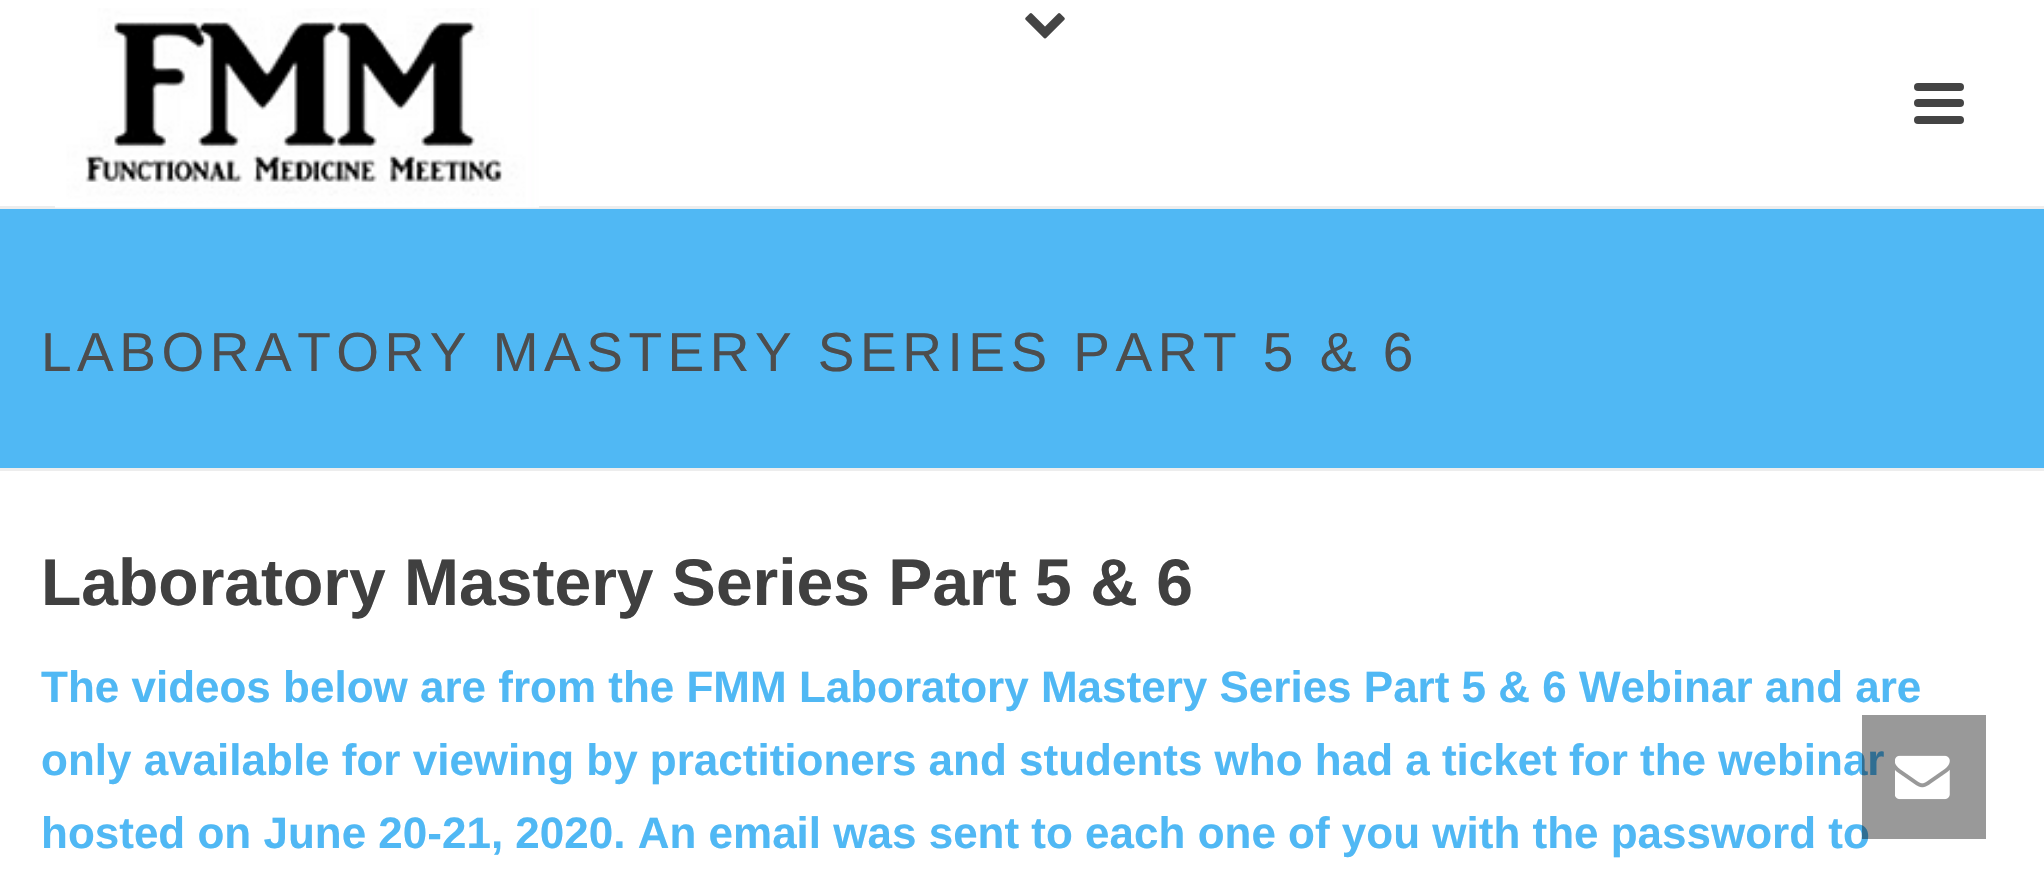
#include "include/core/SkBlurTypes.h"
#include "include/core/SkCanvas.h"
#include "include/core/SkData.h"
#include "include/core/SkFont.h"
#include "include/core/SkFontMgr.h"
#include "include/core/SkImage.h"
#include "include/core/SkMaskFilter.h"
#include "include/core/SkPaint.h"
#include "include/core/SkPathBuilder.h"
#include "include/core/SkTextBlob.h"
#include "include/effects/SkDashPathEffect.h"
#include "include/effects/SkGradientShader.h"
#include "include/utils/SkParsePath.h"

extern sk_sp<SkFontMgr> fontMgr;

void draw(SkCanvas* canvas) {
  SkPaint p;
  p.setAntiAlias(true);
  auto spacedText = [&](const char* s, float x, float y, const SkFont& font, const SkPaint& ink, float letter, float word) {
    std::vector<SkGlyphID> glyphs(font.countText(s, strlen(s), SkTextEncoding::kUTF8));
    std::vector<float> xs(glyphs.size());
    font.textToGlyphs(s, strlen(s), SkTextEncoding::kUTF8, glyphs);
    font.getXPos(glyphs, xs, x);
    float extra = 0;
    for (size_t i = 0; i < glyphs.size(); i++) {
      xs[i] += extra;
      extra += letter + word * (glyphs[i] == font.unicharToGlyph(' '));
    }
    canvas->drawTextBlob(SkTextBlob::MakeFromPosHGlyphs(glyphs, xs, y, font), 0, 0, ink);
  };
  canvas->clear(SK_ColorWHITE);
  p.setColor(SkColorSetRGB(237, 237, 237));
  canvas->drawRect(SkRect::MakeLTRB(0, 468, 2044, 471), p);
  canvas->drawRect(SkRect::MakeLTRB(0, 206, 2044, 209), p);
  canvas->drawImageRect(SkImages::DeferredFromEncodedData(SkData::MakeFromFileName("images/1.png")), SkRect::MakeLTRB(55, 8, 539, 208), SkSamplingOptions());
  p.setColor(SkColorSetRGB(68, 68, 68));
  canvas->drawRoundRect(SkRect::MakeLTRB(1914, 83, 1964, 91), 4, 4, p);
  canvas->drawRoundRect(SkRect::MakeLTRB(1914, 99, 1964, 107), 4, 4, p);
  canvas->drawRoundRect(SkRect::MakeLTRB(1914, 116, 1964, 124), 4, 4, p);
  canvas->drawImageRect(SkImages::DeferredFromEncodedData(SkData::MakeFromFileName("images/2.png")), SkRect::MakeLTRB(1025, 13, 1065, 39), SkSamplingOptions());
  p.setColor(SkColorSetRGB(80, 184, 244));
  canvas->drawRect(SkRect::MakeLTRB(0, 209, 2044, 468), p);
  SkFont font1(fontMgr->matchFamilyStyle("Liberation Sans", SkFontStyle::Normal()), 55);
  font1.setSubpixel(true);
  p.setColor(SkColorSetRGB(77, 77, 77));
  spacedText("LABORATORY MASTERY SERIES PART 5 & 6", 41, 371, font1, p, 5.5f, 0);
  SkFont font2(fontMgr->matchFamilyStyle("Liberation Sans", SkFontStyle::Bold()), 66);
  font2.setSubpixel(true);
  p.setColor(SkColorSetRGB(64, 64, 64));
  canvas->drawString("Laboratory Mastery Series Part 5 & 6", 41, 605, font2, p);
  SkFont font3(fontMgr->matchFamilyStyle("Liberation Sans", SkFontStyle::Bold()), 44);
  font3.setSubpixel(true);
  p.setColor(SkColorSetRGB(80, 184, 244));
  canvas->drawString("The videos below are from the FMM Laboratory Mastery Series Part 5 & 6 Webinar and are", 41, 702, font3, p);
  canvas->drawString("only available for viewing by practitioners and students who had a ticket for the webinar", 41, 775, font3, p);
  canvas->drawString("hosted on June 20-21, 2020. An email was sent to each one of you with the password to", 41, 848, font3, p);
  p.setColor(SkColorSetARGB(102, 0, 0, 0));
  canvas->drawRect(SkRect::MakeLTRB(1862, 715, 1986, 839), p);
  canvas->drawImageRect(SkImages::DeferredFromEncodedData(SkData::MakeFromFileName("images/3.png")), SkRect::MakeLTRB(1895, 755, 1950, 800), SkSamplingOptions());
}
